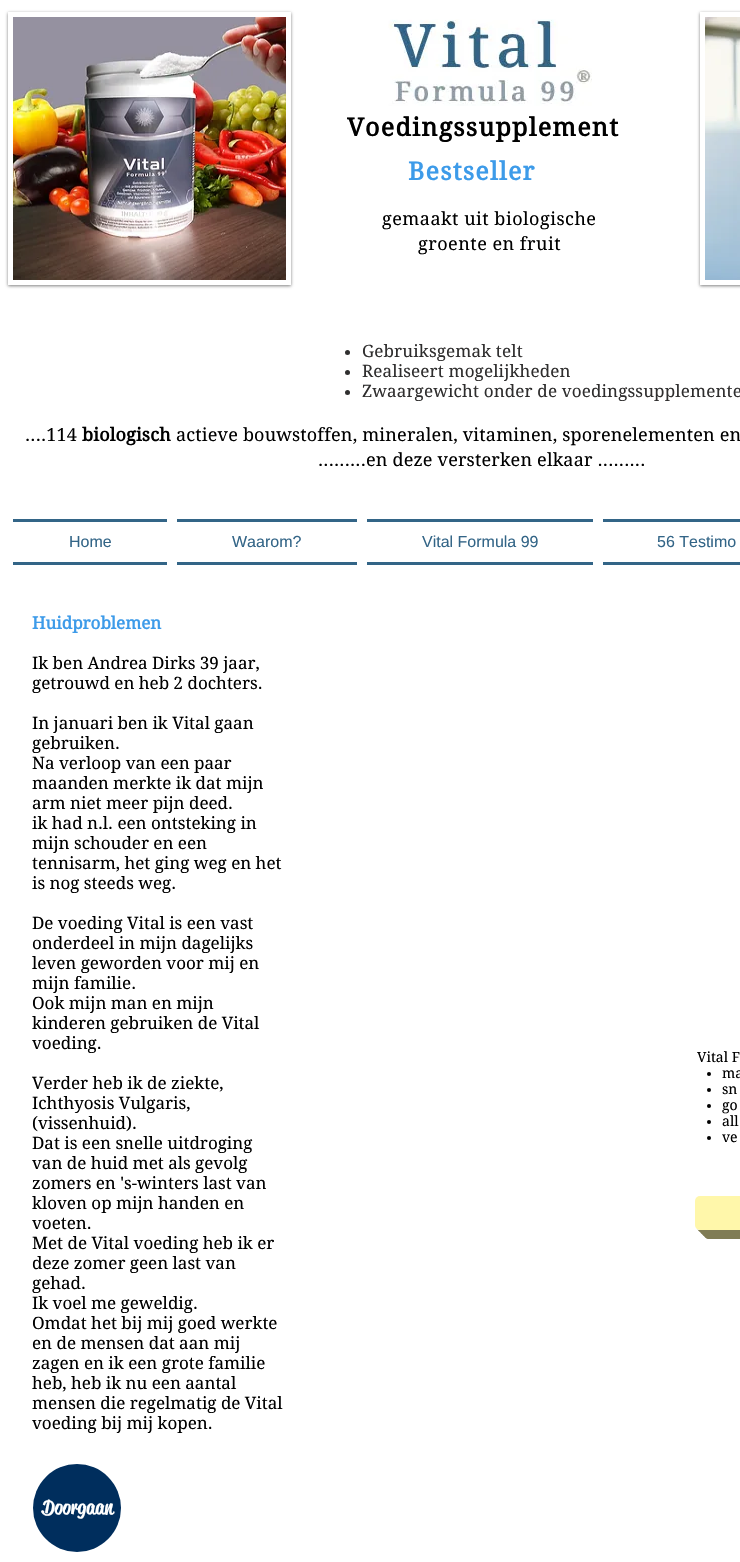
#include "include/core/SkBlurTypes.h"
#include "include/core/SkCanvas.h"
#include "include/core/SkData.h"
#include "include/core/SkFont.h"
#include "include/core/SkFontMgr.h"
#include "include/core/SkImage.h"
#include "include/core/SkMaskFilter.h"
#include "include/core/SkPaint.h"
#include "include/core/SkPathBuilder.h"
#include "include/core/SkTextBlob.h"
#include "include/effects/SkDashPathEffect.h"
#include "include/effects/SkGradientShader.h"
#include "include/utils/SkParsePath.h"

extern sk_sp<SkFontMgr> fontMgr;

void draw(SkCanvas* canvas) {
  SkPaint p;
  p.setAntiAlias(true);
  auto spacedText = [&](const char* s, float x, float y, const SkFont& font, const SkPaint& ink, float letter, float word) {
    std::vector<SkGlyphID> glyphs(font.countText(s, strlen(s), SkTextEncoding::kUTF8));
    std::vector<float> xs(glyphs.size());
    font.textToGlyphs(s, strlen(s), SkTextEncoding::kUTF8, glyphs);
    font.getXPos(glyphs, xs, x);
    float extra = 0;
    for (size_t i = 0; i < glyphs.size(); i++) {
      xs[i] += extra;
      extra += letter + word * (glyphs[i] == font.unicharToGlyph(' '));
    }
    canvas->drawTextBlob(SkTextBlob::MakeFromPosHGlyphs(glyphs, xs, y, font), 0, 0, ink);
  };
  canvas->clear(SK_ColorWHITE);
  canvas->save();
  canvas->clipPath(SkPathBuilder(SkPathFillType::kEvenOdd).moveTo(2, 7).lineTo(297, 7).lineTo(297, 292).lineTo(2, 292).close().moveTo(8, 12).lineTo(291, 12).lineTo(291, 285).lineTo(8, 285).close().detach(), true);
  p.setColor(SkColorSetARGB(128, 0, 0, 0));
  p.setMaskFilter(SkMaskFilter::MakeBlur(kNormal_SkBlurStyle, 1.5f));
  canvas->drawRect(SkRect::MakeLTRB(8, 13, 291, 286), p);
  p.setMaskFilter(nullptr);
  canvas->restore();
  canvas->drawImageRect(SkImages::DeferredFromEncodedData(SkData::MakeFromFileName("images/1.png")), SkRect::MakeLTRB(13, 17, 286, 280), SkSamplingOptions());
  canvas->drawImageRect(SkImages::DeferredFromEncodedData(SkData::MakeFromFileName("images/2.png")), SkRect::MakeLTRB(388, 19, 592, 106), SkSamplingOptions());
  canvas->save();
  canvas->clipPath(SkPathBuilder(SkPathFillType::kEvenOdd).moveTo(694, 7).lineTo(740, 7).lineTo(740, 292).lineTo(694, 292).close().moveTo(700, 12).lineTo(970, 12).lineTo(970, 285).lineTo(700, 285).close().detach(), true);
  p.setMaskFilter(SkMaskFilter::MakeBlur(kNormal_SkBlurStyle, 1.5f));
  canvas->drawRect(SkRect::MakeLTRB(700, 13, 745, 286), p);
  p.setMaskFilter(nullptr);
  canvas->restore();
  canvas->drawImageRect(SkImages::DeferredFromEncodedData(SkData::MakeFromFileName("images/3.png")), SkRect::MakeLTRB(705, 17, 740, 280), SkSamplingOptions());
  p.setColor(SkColorSetRGB(47, 46, 46));
  canvas->drawCircle(347.5f, 352.5f, 2.5f, p);
  canvas->drawCircle(347.5f, 372.5f, 2.5f, p);
  canvas->drawCircle(347.5f, 392.5f, 2.5f, p);
  p.setColor(SkColorSetRGB(51, 101, 135));
  canvas->drawRect(SkRect::MakeLTRB(13, 519, 167, 522), p);
  canvas->drawRect(SkRect::MakeLTRB(13, 562, 167, 565), p);
  canvas->drawRect(SkRect::MakeLTRB(177, 519, 357, 522), p);
  canvas->drawRect(SkRect::MakeLTRB(177, 562, 357, 565), p);
  canvas->drawRect(SkRect::MakeLTRB(367, 519, 593, 522), p);
  canvas->drawRect(SkRect::MakeLTRB(367, 562, 593, 565), p);
  canvas->drawRect(SkRect::MakeLTRB(603, 519, 740, 522), p);
  canvas->drawRect(SkRect::MakeLTRB(603, 562, 740, 565), p);
  p.setColor(SK_ColorBLACK);
  canvas->drawCircle(709, 1074, 2, p);
  canvas->drawCircle(709, 1090, 2, p);
  canvas->drawCircle(709, 1106, 2, p);
  canvas->drawCircle(709, 1122, 2, p);
  canvas->drawCircle(709, 1138, 2, p);
  p.setColor(SkColorSetRGB(128, 124, 85));
  canvas->drawPath(SkPathBuilder().moveTo(704, 1230).lineTo(704, 1234).cubicTo(704, 1237, 706, 1239, 709, 1239).lineTo(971, 1239).cubicTo(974, 1239, 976, 1237, 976, 1234).lineTo(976, 1210).cubicTo(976, 1207, 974, 1205, 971, 1205).lineTo(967, 1205).lineTo(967, 1225).cubicTo(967, 1228, 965, 1230, 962, 1230).close().detach(), p);
  canvas->drawPath(SkPathBuilder().moveTo(702, 1230).lineTo(702, 1232).cubicTo(702, 1235, 704, 1237, 707, 1237).lineTo(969, 1237).cubicTo(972, 1237, 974, 1235, 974, 1232).lineTo(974, 1208).cubicTo(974, 1205, 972, 1203, 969, 1203).lineTo(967, 1203).lineTo(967, 1225).cubicTo(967, 1228, 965, 1230, 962, 1230).close().detach(), p);
  canvas->drawPath(SkPathBuilder().moveTo(700, 1230).cubicTo(700, 1233, 702, 1235, 705, 1235).lineTo(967, 1235).cubicTo(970, 1235, 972, 1233, 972, 1230).lineTo(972, 1206).cubicTo(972, 1203, 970, 1201, 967, 1201).lineTo(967, 1225).cubicTo(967, 1228, 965, 1230, 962, 1230).close().detach(), p);
  canvas->drawPath(SkPathBuilder().moveTo(698, 1230).cubicTo(699, 1232, 701, 1233, 703, 1233).lineTo(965, 1233).cubicTo(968, 1233, 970, 1231, 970, 1228).lineTo(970, 1204).cubicTo(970, 1202, 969, 1200, 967, 1199).lineTo(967, 1217).cubicTo(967, 1221, 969, 1230, 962, 1230).close().detach(), p);
  canvas->drawPath(SkPathBuilder().moveTo(697, 1229).cubicTo(698, 1230, 699, 1231, 701, 1231).lineTo(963, 1231).cubicTo(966, 1231, 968, 1229, 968, 1226).lineTo(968, 1202).cubicTo(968, 1200, 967, 1199, 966, 1198).cubicTo(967, 1199, 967, 1200, 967, 1201).lineTo(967, 1225).cubicTo(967, 1228, 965, 1230, 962, 1230).lineTo(700, 1230).cubicTo(699, 1230, 698, 1230, 697, 1229).close().detach(), p);
  p.setColor(SkColorSetRGB(255, 247, 170));
  canvas->drawRoundRect(SkRect::MakeLTRB(695, 1196, 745, 1230), 5, 5, p);
  p.setColor(SkColorSetRGB(0, 46, 93));
  canvas->drawCircle(77, 1508, 44, p);
  SkFont font1(fontMgr->matchFamilyStyle("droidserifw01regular", SkFontStyle::Bold()), 25);
  font1.setSubpixel(true);
  p.setColor(SK_ColorBLACK);
  spacedText("Voedingssupplement", 347, 136, font1, p, 1.25f, 0);
  p.setColor(SkColorSetRGB(61, 155, 233));
  spacedText("Bestseller", 408, 180, font1, p, 1.25f, 0);
  SkFont font2(fontMgr->matchFamilyStyle("droidserifw01regular", SkFontStyle::Normal()), 18);
  font2.setSubpixel(true);
  p.setColor(SK_ColorBLACK);
  spacedText("gemaakt uit biologische", 382, 225, font2, p, 0.5f, 0);
  spacedText("groente en fruit", 418, 250, font2, p, 0.5f, 0);
  SkFont font3(fontMgr->matchFamilyStyle("droidserifw01regular", SkFontStyle::Normal()), 17);
  font3.setSubpixel(true);
  p.setColor(SkColorSetRGB(47, 46, 46));
  spacedText("Gebruiksgemak telt", 362, 357, font3, p, 0.15f, 0);
  spacedText("Realiseert mogelijkheden", 362, 377, font3, p, 0.15f, 0);
  spacedText("Zwaargewicht onder de voedingssupplemente", 362, 397, font3, p, 0.15f, 0);
  p.setColor(SK_ColorBLACK);
  spacedText("....114", 25, 441, font2, p, 0.18f, 0);
  SkFont font4(fontMgr->matchFamilyStyle("droidserifw01regular", SkFontStyle::Bold()), 18);
  font4.setSubpixel(true);
  spacedText("biologisch", 82, 441, font4, p, 0.18f, 0);
  spacedText("actieve bouwstoffen, mineralen, vitaminen, sporenelementen en", 176, 441, font2, p, 0.18f, 0);
  spacedText(".........en deze versterken elkaar .........", 318, 466, font2, p, 0.18f, 0);
  SkFont font5(fontMgr->matchFamilyStyle("Liberation Sans", SkFontStyle::Normal()), 16);
  font5.setSubpixel(true);
  p.setColor(SkColorSetRGB(51, 101, 135));
  canvas->drawString("Home", 69, 547, font5, p);
  canvas->drawString("Waarom?", 232, 547, font5, p);
  canvas->drawString("Vital Formula 99", 422, 547, font5, p);
  canvas->drawString("56 Testimo", 657, 547, font5, p);
  SkFont font6(fontMgr->matchFamilyStyle("droidserifw01regular", SkFontStyle::Bold()), 17);
  font6.setSubpixel(true);
  p.setColor(SkColorSetRGB(61, 155, 233));
  canvas->drawString("Huidproblemen", 32, 629, font6, p);
  p.setColor(SK_ColorBLACK);
  canvas->drawString("Ik ben Andrea Dirks 39 jaar,", 32, 669, font3, p);
  canvas->drawString("getrouwd en heb 2 dochters.", 32, 689, font3, p);
  canvas->drawString("In januari ben ik Vital gaan", 32, 729, font3, p);
  canvas->drawString("gebruiken.", 32, 749, font3, p);
  canvas->drawString("Na verloop van een paar", 32, 769, font3, p);
  canvas->drawString("maanden merkte ik dat mijn", 32, 789, font3, p);
  canvas->drawString("arm niet meer pijn deed.", 32, 809, font3, p);
  canvas->drawString("ik had n.l. een ontsteking in", 32, 829, font3, p);
  canvas->drawString("mijn schouder en een", 32, 849, font3, p);
  canvas->drawString("tennisarm, het ging weg en het", 32, 869, font3, p);
  canvas->drawString("is nog steeds weg.", 32, 889, font3, p);
  canvas->drawString("De voeding Vital is een vast", 32, 929, font3, p);
  canvas->drawString("onderdeel in mijn dagelijks", 32, 949, font3, p);
  canvas->drawString("leven geworden voor mij en", 32, 969, font3, p);
  canvas->drawString("mijn familie.", 32, 989, font3, p);
  canvas->drawString("Ook mijn man en mijn", 32, 1009, font3, p);
  canvas->drawString("kinderen gebruiken de Vital", 32, 1029, font3, p);
  canvas->drawString("voeding.", 32, 1049, font3, p);
  canvas->drawString("Verder heb ik de ziekte,", 32, 1089, font3, p);
  canvas->drawString("Ichthyosis Vulgaris,", 32, 1109, font3, p);
  canvas->drawString("(vissenhuid).", 32, 1129, font3, p);
  canvas->drawString("Dat is een snelle uitdroging", 32, 1149, font3, p);
  canvas->drawString("van de huid met als gevolg", 32, 1169, font3, p);
  canvas->drawString("zomers en 's-winters last van", 32, 1189, font3, p);
  canvas->drawString("kloven op mijn handen en", 32, 1209, font3, p);
  canvas->drawString("voeten.", 32, 1229, font3, p);
  canvas->drawString("Met de Vital voeding heb ik er", 32, 1249, font3, p);
  canvas->drawString("deze zomer geen last van", 32, 1269, font3, p);
  canvas->drawString("gehad.", 32, 1289, font3, p);
  canvas->drawString("Ik voel me geweldig.", 32, 1309, font3, p);
  canvas->drawString("Omdat het bij mij goed werkte", 32, 1329, font3, p);
  canvas->drawString("en de mensen dat aan mij", 32, 1349, font3, p);
  canvas->drawString("zagen en ik een grote familie", 32, 1369, font3, p);
  canvas->drawString("heb, heb ik nu een aantal", 32, 1389, font3, p);
  canvas->drawString("mensen die regelmatig de Vital", 32, 1409, font3, p);
  canvas->drawString("voeding bij mij kopen.", 32, 1429, font3, p);
  SkFont font7(fontMgr->matchFamilyStyle("droidserifw01regular", SkFontStyle::Normal()), 14);
  font7.setSubpixel(true);
  canvas->drawString("Vital F", 697, 1062, font7, p);
  canvas->drawString("ma", 722, 1078, font7, p);
  canvas->drawString("sn", 722, 1094, font7, p);
  canvas->drawString("go", 722, 1110, font7, p);
  canvas->drawString("all", 722, 1126, font7, p);
  canvas->drawString("ve", 722, 1142, font7, p);
  SkFont font8(fontMgr->matchFamilyStyle("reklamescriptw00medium", SkFontStyle(500, SkFontStyle::kNormal_Width, SkFontStyle::kUpright_Slant)), 20);
  font8.setSubpixel(true);
  p.setColor(SK_ColorWHITE);
  canvas->drawString("Doorgaan", 42, 1514, font8, p);
}
